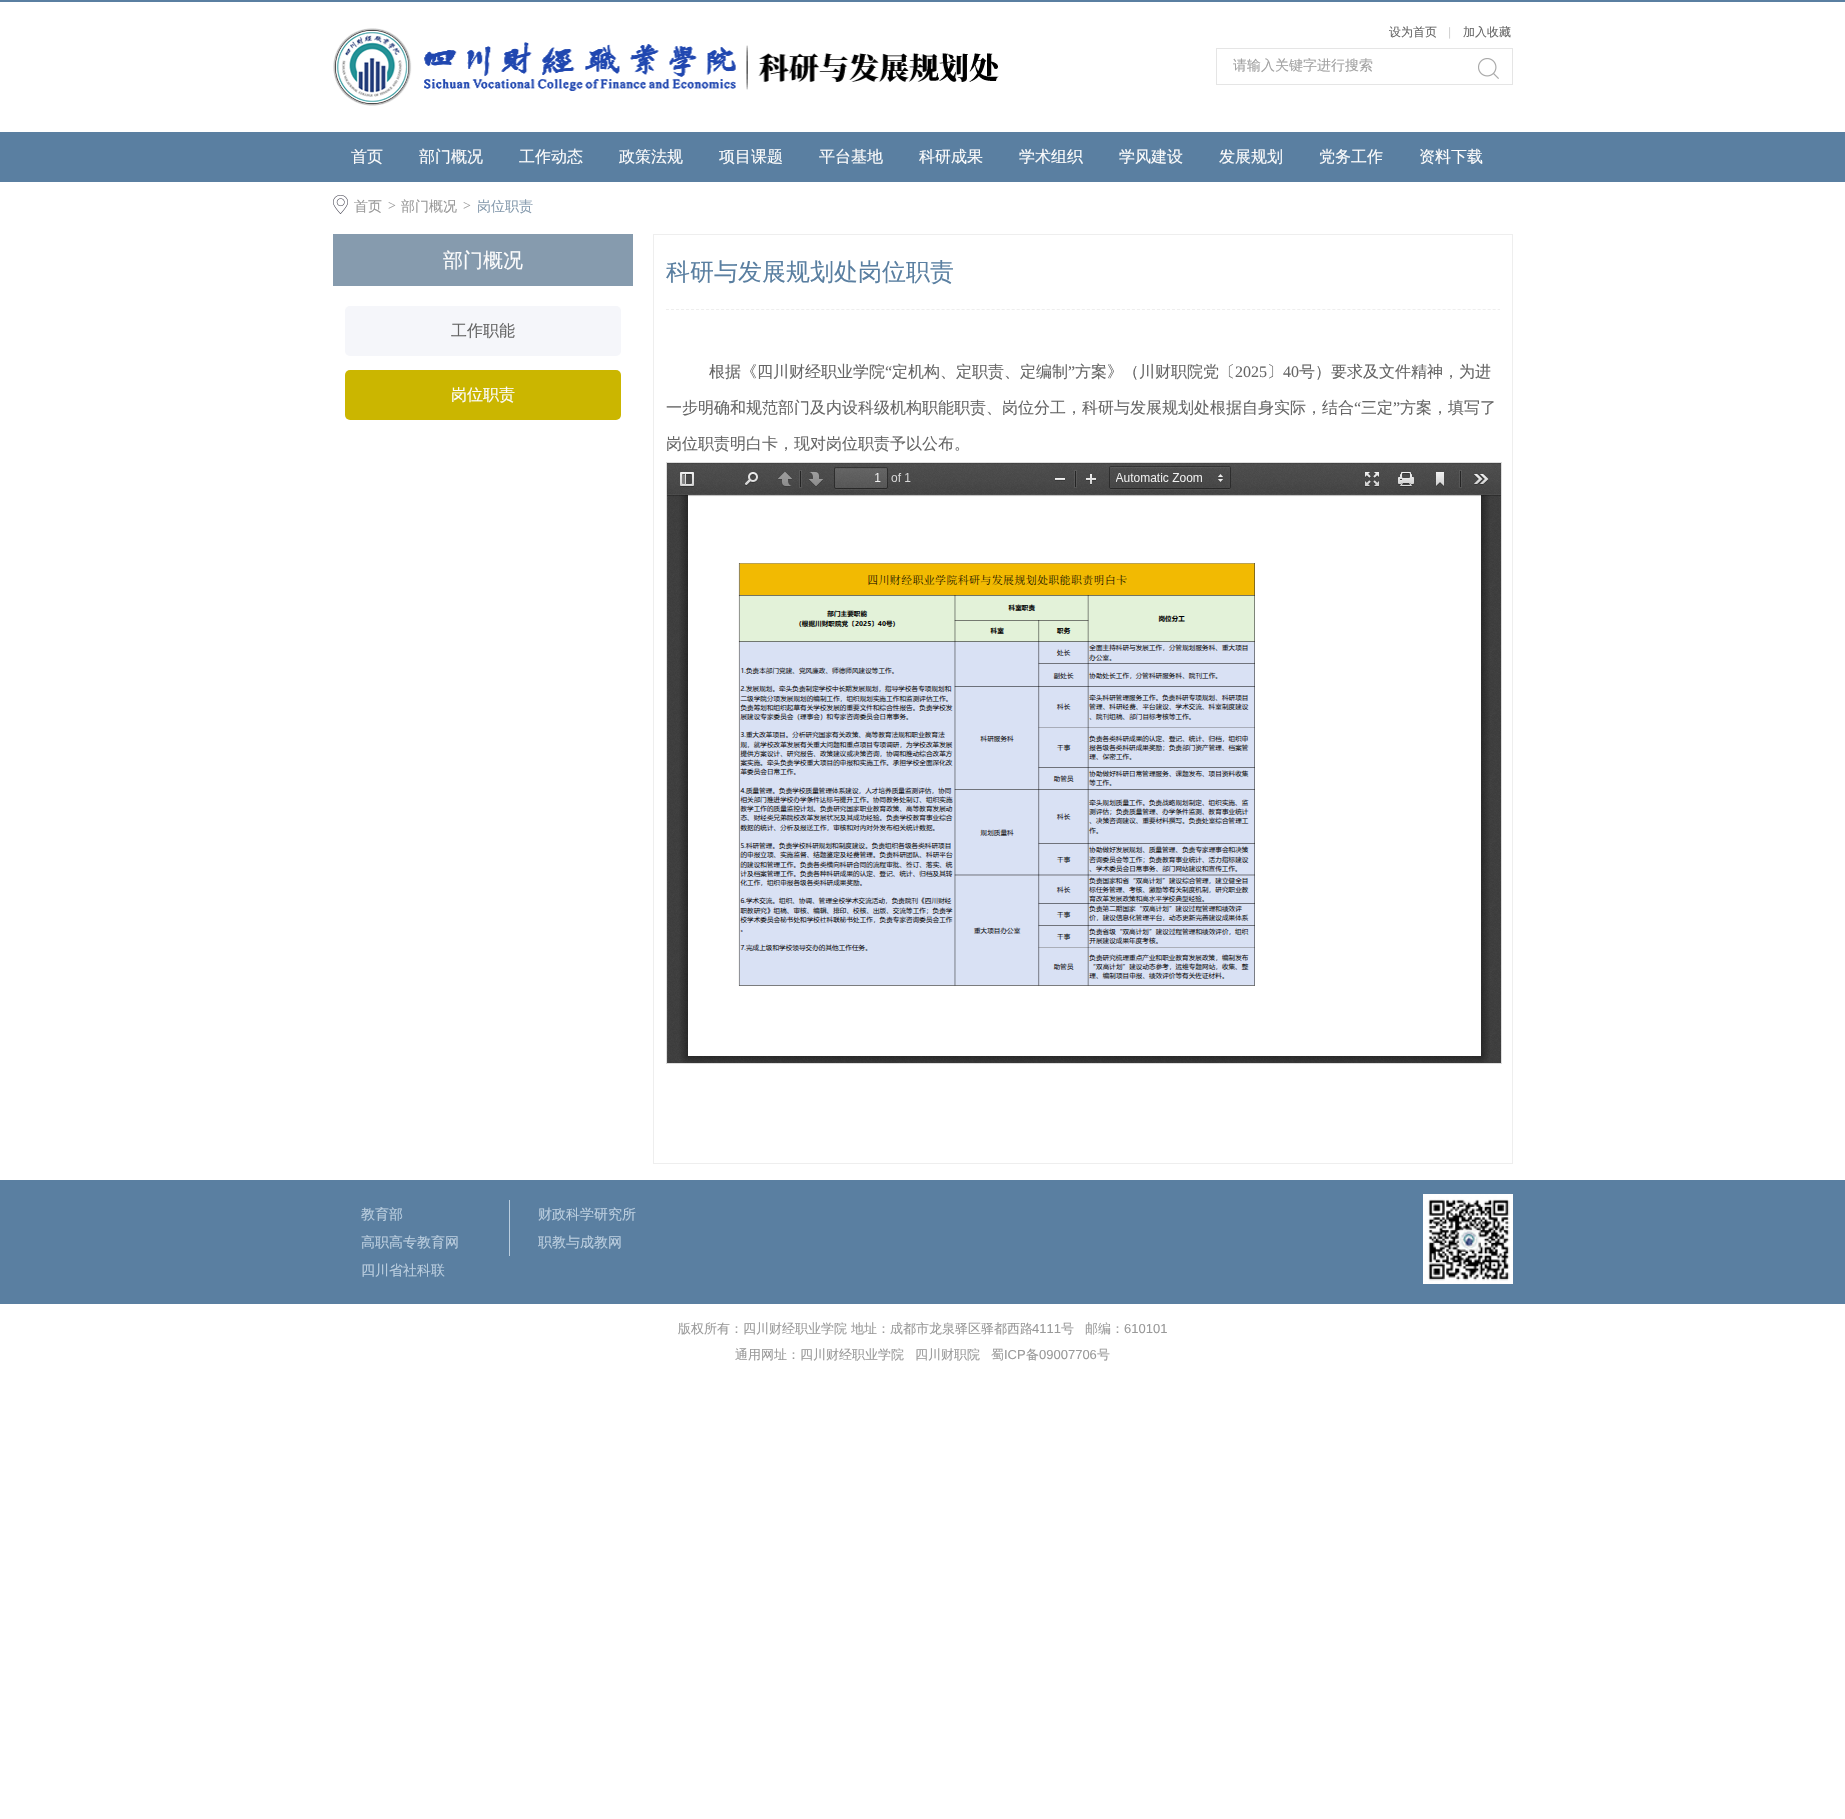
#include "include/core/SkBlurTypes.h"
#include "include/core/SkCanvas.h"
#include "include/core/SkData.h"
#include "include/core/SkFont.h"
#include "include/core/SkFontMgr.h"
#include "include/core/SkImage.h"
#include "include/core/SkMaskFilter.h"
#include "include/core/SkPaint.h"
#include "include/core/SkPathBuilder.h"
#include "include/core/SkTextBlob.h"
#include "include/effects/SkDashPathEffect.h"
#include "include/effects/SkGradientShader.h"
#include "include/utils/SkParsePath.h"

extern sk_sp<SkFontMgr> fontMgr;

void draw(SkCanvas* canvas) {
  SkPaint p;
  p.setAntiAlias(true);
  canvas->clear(SK_ColorWHITE);
  p.setColor(SkColorSetRGB(90, 127, 161));
  canvas->drawRect(SkRect::MakeLTRB(0, 0, 1845, 2), p);
  canvas->drawImageRect(SkImages::DeferredFromEncodedData(SkData::MakeFromFileName("images/1.png")), SkRect::MakeLTRB(333, 28, 999, 106), SkSamplingOptions());
  p.setStyle(SkPaint::kStroke_Style);
  p.setStrokeWidth(1);
  p.setColor(SkColorSetRGB(229, 229, 229));
  canvas->drawRect(SkRect::MakeLTRB(1216.5f, 48.5f, 1512.5f, 84.5f), p);
  canvas->drawImageRect(SkImages::DeferredFromEncodedData(SkData::MakeFromFileName("images/2.png")), SkRect::MakeLTRB(1478, 58, 1499, 79), SkSamplingOptions());
  p.setStyle(SkPaint::kFill_Style);
  p.setColor(SkColorSetRGB(90, 127, 161));
  canvas->drawRect(SkRect::MakeLTRB(0, 132, 1845, 182), p);
  canvas->drawImageRect(SkImages::DeferredFromEncodedData(SkData::MakeFromFileName("images/3.png")), SkRect::MakeLTRB(333, 195, 348, 214), SkSamplingOptions());
  p.setColor(SkColorSetRGB(134, 155, 174));
  canvas->drawRect(SkRect::MakeLTRB(333, 234, 633, 286), p);
  p.setColor(SkColorSetRGB(245, 246, 250));
  canvas->drawRoundRect(SkRect::MakeLTRB(345, 306, 621, 356), 5, 5, p);
  p.setColor(SkColorSetRGB(203, 182, 0));
  canvas->drawRoundRect(SkRect::MakeLTRB(345, 370, 621, 420), 5, 5, p);
  p.setStyle(SkPaint::kStroke_Style);
  p.setColor(SkColorSetRGB(238, 238, 238));
  canvas->drawRect(SkRect::MakeLTRB(653.5f, 234.5f, 1512.5f, 1163.5f), p);
  p.setPathEffect(SkDashPathEffect::Make({{3, 2.01f}}, 0));
  canvas->drawPath(SkPathBuilder().moveTo(666, 309.5f).lineTo(1500, 309.5f).detach(), p);
  p.setPathEffect(nullptr);
  p.setColor(SkColorSetRGB(221, 221, 221));
  canvas->drawRect(SkRect::MakeLTRB(666.5f, 462.5f, 1501.5f, 1063.5f), p);
  canvas->drawImageRect(SkImages::DeferredFromEncodedData(SkData::MakeFromFileName("images/4.png")), SkRect::MakeLTRB(667, 463, 1501, 1063), SkSamplingOptions());
  p.setStyle(SkPaint::kFill_Style);
  p.setColor(SkColorSetRGB(90, 127, 161));
  canvas->drawRect(SkRect::MakeLTRB(0, 1180, 1845, 1304), p);
  p.setColor(SkColorSetRGB(187, 206, 223));
  canvas->drawRect(SkRect::MakeLTRB(509, 1200, 510, 1256), p);
  canvas->drawImageRect(SkImages::DeferredFromEncodedData(SkData::MakeFromFileName("images/5.png")), SkRect::MakeLTRB(1423, 1194, 1513, 1284), SkSamplingOptions());
  SkFont font1(fontMgr->matchFamilyStyle("WenQuanYi Zen Hei", SkFontStyle(500, SkFontStyle::kNormal_Width, SkFontStyle::kUpright_Slant)), 12);
  font1.setSubpixel(true);
  p.setColor(SkColorSetRGB(102, 102, 102));
  canvas->drawString("设为首页", 1389, 36, font1, p);
  SkFont font2(fontMgr->matchFamilyStyle("Liberation Sans", SkFontStyle::Normal()), 12);
  font2.setSubpixel(true);
  p.setColor(SkColorSetRGB(209, 209, 209));
  canvas->drawString("|", 1448, 36, font2, p);
  p.setColor(SkColorSetRGB(102, 102, 102));
  canvas->drawString("加入收藏", 1463, 36, font1, p);
  SkFont font3(fontMgr->matchFamilyStyle("WenQuanYi Zen Hei", SkFontStyle(500, SkFontStyle::kNormal_Width, SkFontStyle::kUpright_Slant)), 14);
  font3.setSubpixel(true);
  p.setColor(SkColorSetRGB(162, 162, 162));
  canvas->drawString("请输入关键字进行搜索", 1233, 70, font3, p);
  SkFont font4(fontMgr->matchFamilyStyle("WenQuanYi Zen Hei", SkFontStyle(500, SkFontStyle::kNormal_Width, SkFontStyle::kUpright_Slant)), 16);
  font4.setSubpixel(true);
  p.setColor(SkColorSetRGB(252, 252, 252));
  canvas->drawString("首页", 351, 162, font4, p);
  canvas->drawString("部门概况", 419, 162, font4, p);
  canvas->drawString("工作动态", 519, 162, font4, p);
  canvas->drawString("政策法规", 619, 162, font4, p);
  canvas->drawString("项目课题", 719, 162, font4, p);
  canvas->drawString("平台基地", 819, 162, font4, p);
  canvas->drawString("科研成果", 919, 162, font4, p);
  canvas->drawString("学术组织", 1019, 162, font4, p);
  canvas->drawString("学风建设", 1119, 162, font4, p);
  canvas->drawString("发展规划", 1219, 162, font4, p);
  canvas->drawString("党务工作", 1319, 162, font4, p);
  canvas->drawString("资料下载", 1419, 162, font4, p);
  p.setColor(SkColorSetRGB(153, 153, 153));
  canvas->drawString("首页", 354, 211, font3, p);
  SkFont font5(fontMgr->matchFamilyStyle("Liberation Serif", SkFontStyle::Normal()), 14);
  font5.setSubpixel(true);
  canvas->drawString(">", 388, 210, font5, p);
  canvas->drawString("部门概况", 401, 211, font3, p);
  canvas->drawString(">", 463, 210, font5, p);
  p.setColor(SkColorSetRGB(134, 155, 174));
  canvas->drawString("岗位职责", 477, 211, font3, p);
  SkFont font6(fontMgr->matchFamilyStyle("WenQuanYi Zen Hei", SkFontStyle(500, SkFontStyle::kNormal_Width, SkFontStyle::kUpright_Slant)), 20);
  font6.setSubpixel(true);
  p.setColor(SkColorSetRGB(252, 252, 252));
  canvas->drawString("部门概况", 443, 267, font6, p);
  p.setColor(SkColorSetRGB(102, 102, 102));
  canvas->drawString("工作职能", 451, 336, font4, p);
  p.setColor(SkColorSetRGB(252, 252, 252));
  canvas->drawString("岗位职责", 451, 400, font4, p);
  SkFont font7(fontMgr->matchFamilyStyle("WenQuanYi Zen Hei", SkFontStyle(500, SkFontStyle::kNormal_Width, SkFontStyle::kUpright_Slant)), 24);
  font7.setSubpixel(true);
  p.setColor(SkColorSetRGB(90, 127, 161));
  canvas->drawString("科研与发展规划处岗位职责", 666, 280, font7, p);
  p.setColor(SkColorSetRGB(102, 102, 102));
  canvas->drawString("根据《四川财经职业学院", 709, 377, font4, p);
  SkFont font8(fontMgr->matchFamilyStyle("Liberation Serif", SkFontStyle::Normal()), 16);
  font8.setSubpixel(true);
  canvas->drawString("“", 885, 377, font8, p);
  canvas->drawString("定机构、定职责、定编制", 892, 377, font4, p);
  canvas->drawString("”", 1068, 377, font8, p);
  canvas->drawString("方案》（川财职院党〔", 1075, 377, font4, p);
  canvas->drawString("2025", 1235, 377, font8, p);
  canvas->drawString("〕", 1267, 377, font4, p);
  canvas->drawString("40", 1283, 377, font8, p);
  canvas->drawString("号）要求及文件精神，为进", 1299, 377, font4, p);
  canvas->drawString("一步明确和规范部门及内设科级机构职能职责、岗位分工，科研与发展规划处根据自身实际，结合", 666, 413, font4, p);
  canvas->drawString("“", 1354, 413, font8, p);
  canvas->drawString("三定", 1361, 413, font4, p);
  canvas->drawString("”", 1393, 413, font8, p);
  canvas->drawString("方案，填写了", 1400, 413, font4, p);
  canvas->drawString("岗位职责明白卡，现对岗位职责予以公布。", 666, 449, font4, p);
  p.setColor(SkColorSetRGB(187, 206, 223));
  canvas->drawString("教育部", 361, 1219, font3, p);
  canvas->drawString("高职高专教育网", 361, 1247, font3, p);
  canvas->drawString("四川省社科联", 361, 1275, font3, p);
  canvas->drawString("财政科学研究所", 538, 1219, font3, p);
  canvas->drawString("职教与成教网", 538, 1247, font3, p);
  SkFont font9(fontMgr->matchFamilyStyle("WenQuanYi Zen Hei", SkFontStyle(500, SkFontStyle::kNormal_Width, SkFontStyle::kUpright_Slant)), 13);
  font9.setSubpixel(true);
  p.setColor(SkColorSetRGB(153, 153, 153));
  canvas->drawString("版权所有：四川财经职业学院 地址：成都市龙泉驿区驿都西路", 678, 1333, font9, p);
  SkFont font10(fontMgr->matchFamilyStyle("Liberation Sans", SkFontStyle::Normal()), 13);
  font10.setSubpixel(true);
  canvas->drawString("4111", 1032, 1333, font10, p);
  canvas->drawString("号", 1061, 1333, font9, p);
  canvas->drawString("邮编：", 1085, 1333, font9, p);
  canvas->drawString("610101", 1124, 1333, font10, p);
  canvas->drawString("通用网址：四川财经职业学院", 735, 1359, font9, p);
  canvas->drawString("四川财职院", 915, 1359, font9, p);
  canvas->drawString("蜀", 991, 1359, font9, p);
  canvas->drawString("ICP", 1004, 1359, font10, p);
  canvas->drawString("备", 1026, 1359, font9, p);
  canvas->drawString("09007706", 1039, 1359, font10, p);
  canvas->drawString("号", 1097, 1359, font9, p);
}
